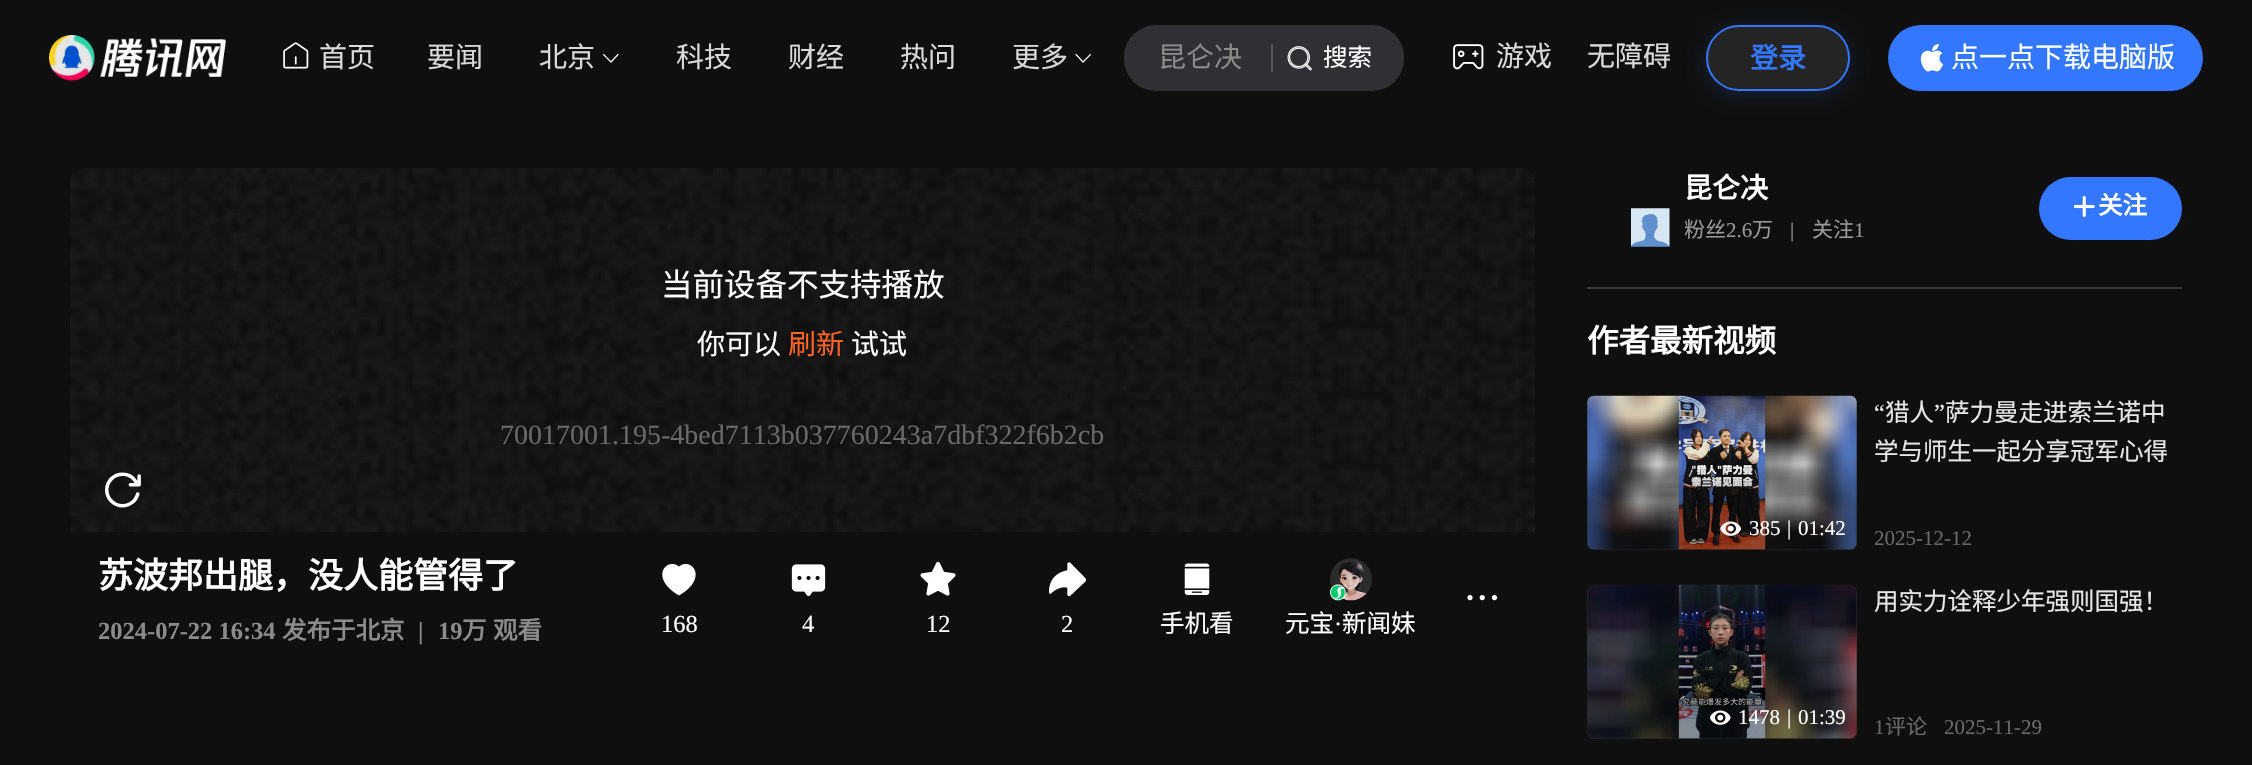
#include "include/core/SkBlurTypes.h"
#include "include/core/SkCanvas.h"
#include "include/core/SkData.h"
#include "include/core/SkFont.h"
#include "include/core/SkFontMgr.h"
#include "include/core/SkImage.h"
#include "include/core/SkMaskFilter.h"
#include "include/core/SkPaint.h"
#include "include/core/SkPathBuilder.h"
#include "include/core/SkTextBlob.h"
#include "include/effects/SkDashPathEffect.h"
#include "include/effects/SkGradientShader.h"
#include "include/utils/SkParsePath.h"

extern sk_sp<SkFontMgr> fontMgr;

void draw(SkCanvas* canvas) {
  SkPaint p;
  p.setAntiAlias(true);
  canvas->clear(SkColorSetRGB(15, 15, 15));
  canvas->drawImageRect(SkImages::DeferredFromEncodedData(SkData::MakeFromFileName("images/1.png")), SkRect::MakeLTRB(49, 35, 226, 81), SkSamplingOptions());
  canvas->drawImageRect(SkImages::DeferredFromEncodedData(SkData::MakeFromFileName("images/2.png")), SkRect::MakeLTRB(283, 42, 309, 69), SkSamplingOptions());
  p.setStyle(SkPaint::kStroke_Style);
  p.setStrokeWidth(1.2f);
  p.setStrokeCap(SkPaint::kRound_Cap);
  p.setStrokeJoin(SkPaint::kRound_Join);
  p.setColor(SK_ColorWHITE);
  canvas->drawPath(SkPathBuilder().moveTo(618, 54.5f).lineTo(611, 62).lineTo(603.5f, 54.5f).detach(), p);
  canvas->drawPath(SkPathBuilder().moveTo(1090.5f, 54.5f).lineTo(1083, 62).lineTo(1076, 54.5f).detach(), p);
  p.setStyle(SkPaint::kFill_Style);
  p.setColor(SkColorSetRGB(47, 47, 52));
  canvas->drawRoundRect(SkRect::MakeLTRB(1124, 25, 1404, 91), 32, 32, p);
  p.setColor(SkColorSetRGB(89, 89, 93));
  canvas->drawRect(SkRect::MakeLTRB(1271, 44, 1273, 72), p);
  canvas->drawImageRect(SkImages::DeferredFromEncodedData(SkData::MakeFromFileName("images/3.png")), SkRect::MakeLTRB(1287, 46, 1312, 71), SkSamplingOptions());
  canvas->drawImageRect(SkImages::DeferredFromEncodedData(SkData::MakeFromFileName("images/4.png")), SkRect::MakeLTRB(1453, 44, 1484, 70), SkSamplingOptions());
  canvas->save();
  canvas->clipPath(SkPathBuilder(SkPathFillType::kEvenOdd).moveTo(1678, 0).lineTo(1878, 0).lineTo(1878, 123).lineTo(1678, 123).close().moveTo(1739, 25).lineTo(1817, 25).cubicTo(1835, 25, 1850, 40, 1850, 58).cubicTo(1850, 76, 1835, 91, 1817, 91).lineTo(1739, 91).cubicTo(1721, 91, 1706, 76, 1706, 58).cubicTo(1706, 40, 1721, 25, 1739, 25).close().detach(), true);
  p.setColor(SkColorSetARGB(41, 51, 119, 255));
  p.setMaskFilter(SkMaskFilter::MakeBlur(kNormal_SkBlurStyle, 9));
  canvas->drawRoundRect(SkRect::MakeLTRB(1706, 28, 1850, 95), 33.5f, 33.5f, p);
  p.setMaskFilter(nullptr);
  canvas->restore();
  p.setColor(SkColorSetARGB(26, 217, 217, 217));
  canvas->drawRoundRect(SkRect::MakeLTRB(1707, 26, 1849, 90), 32, 32, p);
  p.setStyle(SkPaint::kStroke_Style);
  p.setStrokeWidth(2);
  p.setStrokeCap(SkPaint::kButt_Cap);
  p.setStrokeJoin(SkPaint::kMiter_Join);
  p.setColor(SkColorSetRGB(51, 119, 255));
  canvas->drawRoundRect(SkRect::MakeLTRB(1707, 26, 1849, 90), 32, 32, p);
  p.setStyle(SkPaint::kFill_Style);
  canvas->drawRoundRect(SkRect::MakeLTRB(1888, 25, 2203, 91), 33, 33, p);
  canvas->drawImageRect(SkImages::DeferredFromEncodedData(SkData::MakeFromFileName("images/5.png")), SkRect::MakeLTRB(1920, 44, 1944, 72), SkSamplingOptions());
  canvas->drawImageRect(SkImages::DeferredFromEncodedData(SkData::MakeFromFileName("images/6.png")), SkRect::MakeLTRB(70, 168, 1535, 532), SkSamplingOptions());
  canvas->drawImageRect(SkImages::DeferredFromEncodedData(SkData::MakeFromFileName("images/7.png")), SkRect::MakeLTRB(1467, 595, 1498, 601), SkSamplingOptions());
  canvas->drawImageRect(SkImages::DeferredFromEncodedData(SkData::MakeFromFileName("images/8.png")), SkRect::MakeLTRB(662, 563, 696, 596), SkSamplingOptions());
  canvas->drawImageRect(SkImages::DeferredFromEncodedData(SkData::MakeFromFileName("images/9.png")), SkRect::MakeLTRB(791, 564, 826, 596), SkSamplingOptions());
  canvas->drawImageRect(SkImages::DeferredFromEncodedData(SkData::MakeFromFileName("images/10.png")), SkRect::MakeLTRB(920, 561, 956, 596), SkSamplingOptions());
  canvas->drawImageRect(SkImages::DeferredFromEncodedData(SkData::MakeFromFileName("images/11.png")), SkRect::MakeLTRB(1049, 562, 1086, 597), SkSamplingOptions());
  canvas->drawImageRect(SkImages::DeferredFromEncodedData(SkData::MakeFromFileName("images/12.png")), SkRect::MakeLTRB(1184, 563, 1210, 595), SkSamplingOptions());
  canvas->drawImageRect(SkImages::DeferredFromEncodedData(SkData::MakeFromFileName("images/13.png")), SkRect::MakeLTRB(1330, 558, 1372, 601), SkSamplingOptions());
  canvas->drawImageRect(SkImages::DeferredFromEncodedData(SkData::MakeFromFileName("images/14.png")), SkRect::MakeLTRB(1330, 584, 1346, 601), SkSamplingOptions());
  canvas->drawRoundRect(SkRect::MakeLTRB(2039, 177, 2182, 240), 31.5f, 31.5f, p);
  canvas->drawImageRect(SkImages::DeferredFromEncodedData(SkData::MakeFromFileName("images/15.png")), SkRect::MakeLTRB(2074, 196, 2095, 217), SkSamplingOptions());
  canvas->drawImageRect(SkImages::DeferredFromEncodedData(SkData::MakeFromFileName("images/16.png")), SkRect::MakeLTRB(1631, 208, 1670, 247), SkSamplingOptions());
  p.setColor(SkColorSetRGB(56, 56, 56));
  canvas->drawRect(SkRect::MakeLTRB(1587, 287, 2182, 289), p);
  p.setColor(SkColorSetRGB(51, 51, 51));
  canvas->drawRoundRect(SkRect::MakeLTRB(1587, 396, 1857, 550), 7, 7, p);
  canvas->drawImageRect(SkImages::DeferredFromEncodedData(SkData::MakeFromFileName("images/17.png")), SkRect::MakeLTRB(1587, 395, 1857, 550), SkSamplingOptions());
  {
    const SkColor colors[] = {SkColorSetARGB(77, 0, 0, 0), SkColorSetARGB(0, 0, 0, 0)};
    const float stops[] = {0.3f, 0.6f};
    const SkPoint ends[] = {{1722, 550}, {1722, 396}};
    p.setShader(SkGradientShader::MakeLinear(ends, colors, stops, 2, SkTileMode::kClamp));
    p.setAlpha(255);
  }
  canvas->drawRoundRect(SkRect::MakeLTRB(1587, 396, 1857, 550), 7, 7, p);
  canvas->drawImageRect(SkImages::DeferredFromEncodedData(SkData::MakeFromFileName("images/18.png")), SkRect::MakeLTRB(1720, 521, 1741, 536), SkSamplingOptions());
  p.setShader(nullptr);
  p.setColor(SkColorSetRGB(51, 51, 51));
  canvas->drawRoundRect(SkRect::MakeLTRB(1587, 585, 1857, 739), 7, 7, p);
  canvas->drawImageRect(SkImages::DeferredFromEncodedData(SkData::MakeFromFileName("images/19.png")), SkRect::MakeLTRB(1587, 584, 1857, 739), SkSamplingOptions());
  {
    const SkColor colors[] = {SkColorSetARGB(77, 0, 0, 0), SkColorSetARGB(0, 0, 0, 0)};
    const float stops[] = {0.3f, 0.6f};
    const SkPoint ends[] = {{1722, 739}, {1722, 585}};
    p.setShader(SkGradientShader::MakeLinear(ends, colors, stops, 2, SkTileMode::kClamp));
    p.setAlpha(255);
  }
  canvas->drawRoundRect(SkRect::MakeLTRB(1587, 585, 1857, 739), 7, 7, p);
  canvas->drawImageRect(SkImages::DeferredFromEncodedData(SkData::MakeFromFileName("images/20.png")), SkRect::MakeLTRB(1710, 710, 1731, 725), SkSamplingOptions());
  SkFont font1(fontMgr->matchFamilyStyle("Noto Sans CJK SC", SkFontStyle::Normal()), 28);
  font1.setSubpixel(true);
  p.setShader(nullptr);
  p.setColor(SkColorSetRGB(217, 217, 217));
  canvas->drawString("首页", 319, 67, font1, p);
  canvas->drawString("要闻", 427, 67, font1, p);
  canvas->drawString("北京", 539, 67, font1, p);
  canvas->drawString("科技", 676, 67, font1, p);
  canvas->drawString("财经", 788, 67, font1, p);
  canvas->drawString("热问", 900, 67, font1, p);
  canvas->drawString("更多", 1012, 67, font1, p);
  p.setColor(SkColorSetRGB(139, 139, 139));
  canvas->drawString("昆仑决", 1158, 67, font1, p);
  SkFont font2(fontMgr->matchFamilyStyle("Noto Sans CJK SC", SkFontStyle::Normal()), 24.5f);
  font2.setSubpixel(true);
  p.setColor(SK_ColorWHITE);
  canvas->drawString("搜索", 1323, 66, font2, p);
  p.setColor(SkColorSetRGB(217, 217, 217));
  canvas->drawString("游戏", 1496, 66, font1, p);
  canvas->drawString("无障碍", 1587, 66, font1, p);
  SkFont font3(fontMgr->matchFamilyStyle("Noto Sans CJK SC", SkFontStyle::Bold()), 28);
  font3.setSubpixel(true);
  p.setColor(SkColorSetRGB(51, 119, 255));
  canvas->drawString("登录", 1750, 68, font3, p);
  p.setColor(SK_ColorWHITE);
  canvas->drawString("点一点下载电脑版", 1951, 67, font1, p);
  SkFont font4(fontMgr->matchFamilyStyle("Noto Sans CJK SC", SkFontStyle::Normal()), 31.5f);
  font4.setSubpixel(true);
  canvas->drawString("当前设备不支持播放", 661, 296, font4, p);
  canvas->drawString("你可以", 697, 354, font1, p);
  p.setColor(SkColorSetRGB(252, 101, 38));
  canvas->drawString("刷新", 788, 354, font1, p);
  p.setColor(SK_ColorWHITE);
  canvas->drawString("试试", 851, 354, font1, p);
  SkFont font5(fontMgr->matchFamilyStyle("Liberation Serif", SkFontStyle::Normal()), 28);
  font5.setSubpixel(true);
  p.setColor(SkColorSetRGB(105, 105, 105));
  canvas->drawString("70017001.195-4bed7113b037760243a7dbf322f6b2cb", 500, 444, font5, p);
  SkFont font6(fontMgr->matchFamilyStyle("Noto Sans CJK SC", SkFontStyle::Bold()), 35);
  font6.setSubpixel(true);
  p.setColor(SK_ColorWHITE);
  canvas->drawString("苏波邦出腿，没人能管得了", 98, 588, font6, p);
  SkFont font7(fontMgr->matchFamilyStyle("Liberation Serif", SkFontStyle::Bold()), 24.5f);
  font7.setSubpixel(true);
  p.setColor(SkColorSetRGB(139, 139, 139));
  canvas->drawString("2024-07-22 16:34", 98, 639, font7, p);
  SkFont font8(fontMgr->matchFamilyStyle("Noto Sans CJK SC", SkFontStyle::Bold()), 24.5f);
  font8.setSubpixel(true);
  canvas->drawString("发布于北京", 282, 639, font8, p);
  canvas->drawString("|", 418, 639, font7, p);
  canvas->drawString("19", 438, 639, font7, p);
  canvas->drawString("万", 462, 639, font8, p);
  canvas->drawString("观看", 493, 639, font8, p);
  SkFont font9(fontMgr->matchFamilyStyle("Liberation Serif", SkFontStyle::Normal()), 24.5f);
  font9.setSubpixel(true);
  p.setColor(SK_ColorWHITE);
  canvas->drawString("168", 661, 632, font9, p);
  canvas->drawString("4", 802, 632, font9, p);
  canvas->drawString("12", 926, 632, font9, p);
  canvas->drawString("2", 1061, 632, font9, p);
  canvas->drawString("手机看", 1160, 632, font2, p);
  canvas->drawString("元宝", 1285, 632, font2, p);
  canvas->drawString("·", 1334, 632, font9, p);
  canvas->drawString("新闻妹", 1342, 632, font2, p);
  canvas->drawString("昆仑决", 1684, 198, font3, p);
  SkFont font10(fontMgr->matchFamilyStyle("Noto Sans CJK SC", SkFontStyle::Normal()), 21);
  font10.setSubpixel(true);
  p.setColor(SkColorSetRGB(153, 153, 153));
  canvas->drawString("粉丝", 1684, 237, font10, p);
  SkFont font11(fontMgr->matchFamilyStyle("Liberation Serif", SkFontStyle::Normal()), 21);
  font11.setSubpixel(true);
  canvas->drawString("2.6", 1726, 237, font11, p);
  canvas->drawString("万", 1752, 237, font10, p);
  canvas->drawString("|", 1790, 237, font11, p);
  canvas->drawString("关注", 1812, 237, font10, p);
  canvas->drawString("1", 1854, 237, font11, p);
  p.setColor(SK_ColorWHITE);
  canvas->drawString("关注", 2098, 214, font8, p);
  SkFont font12(fontMgr->matchFamilyStyle("Noto Sans CJK SC", SkFontStyle::Bold()), 31.5f);
  font12.setSubpixel(true);
  canvas->drawString("作者最新视频", 1587, 352, font12, p);
  canvas->drawString("385", 1749, 535, font11, p);
  canvas->drawString("|", 1787, 535, font11, p);
  canvas->drawString("01:42", 1798, 535, font11, p);
  p.setColor(SkColorSetRGB(230, 230, 230));
  canvas->drawString("“", 1874, 421, font9, p);
  canvas->drawString("猎人", 1885, 421, font2, p);
  canvas->drawString("”", 1934, 421, font9, p);
  canvas->drawString("萨力曼走进索兰诺中", 1945, 421, font2, p);
  canvas->drawString("学与师生一起分享冠军心得", 1874, 460, font2, p);
  p.setColor(SkColorSetRGB(105, 105, 105));
  canvas->drawString("2025-12-12", 1874, 545, font11, p);
  p.setColor(SK_ColorWHITE);
  canvas->drawString("1478", 1738, 724, font11, p);
  canvas->drawString("|", 1787, 724, font11, p);
  canvas->drawString("01:39", 1798, 724, font11, p);
  p.setColor(SkColorSetRGB(230, 230, 230));
  canvas->drawString("用实力诠释少年强则国强！", 1874, 610, font2, p);
  p.setColor(SkColorSetRGB(105, 105, 105));
  canvas->drawString("1", 1874, 734, font11, p);
  canvas->drawString("评论", 1885, 734, font10, p);
  canvas->drawString("2025-11-29", 1944, 734, font11, p);
}
